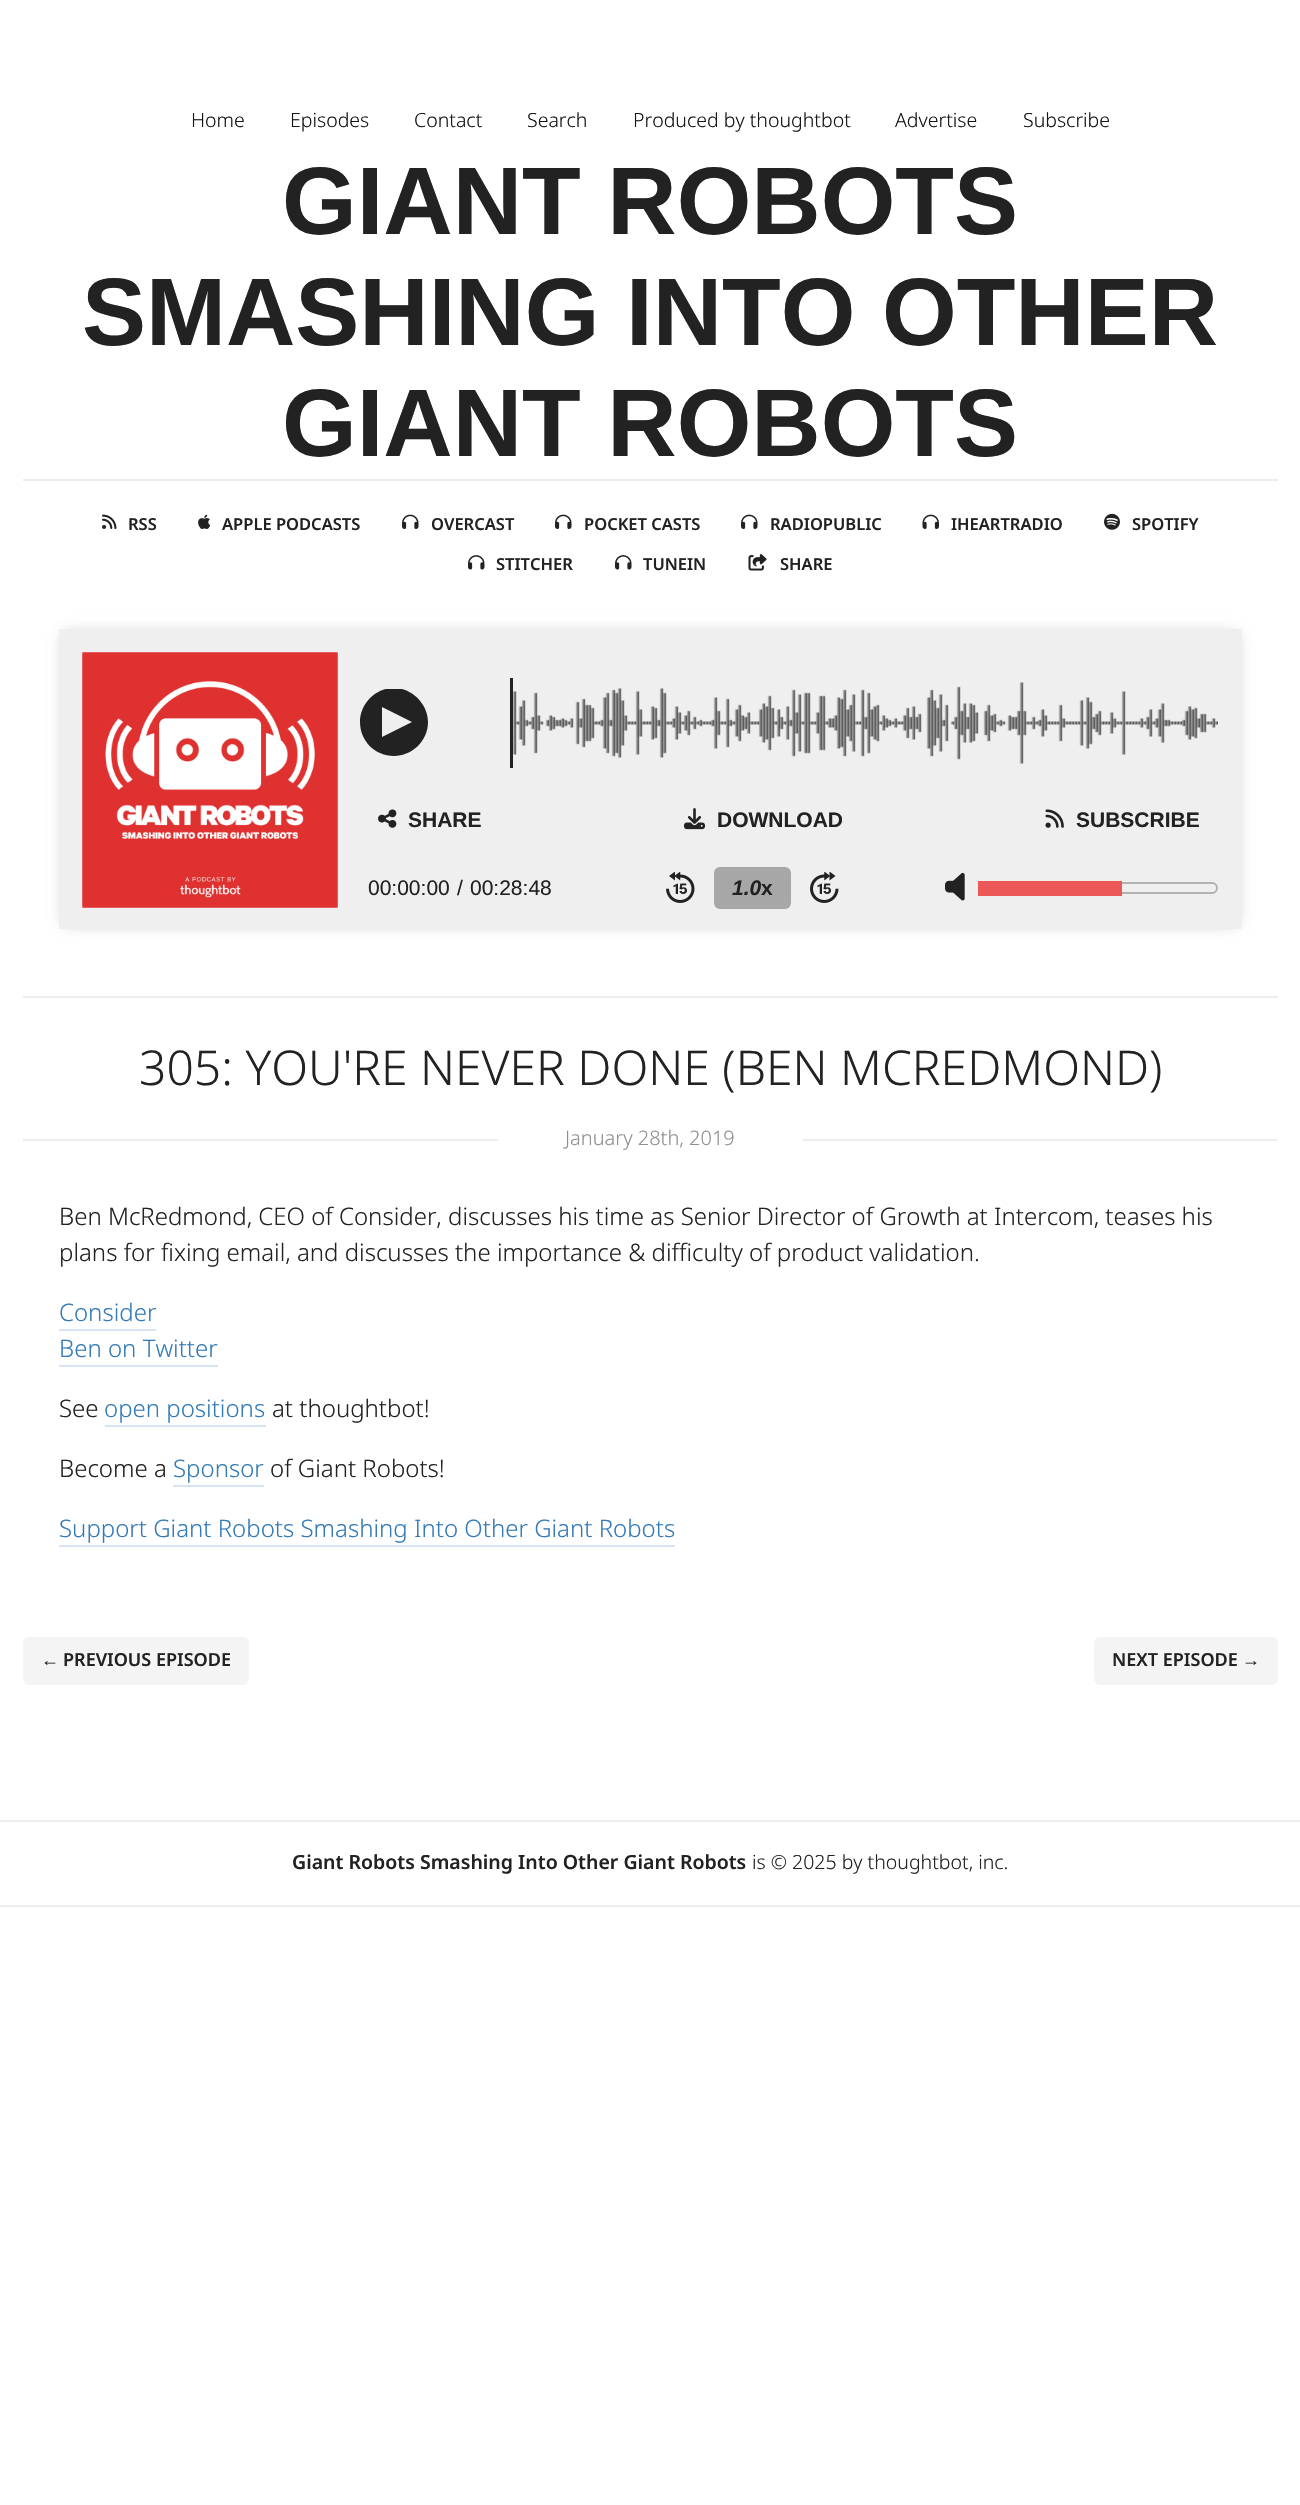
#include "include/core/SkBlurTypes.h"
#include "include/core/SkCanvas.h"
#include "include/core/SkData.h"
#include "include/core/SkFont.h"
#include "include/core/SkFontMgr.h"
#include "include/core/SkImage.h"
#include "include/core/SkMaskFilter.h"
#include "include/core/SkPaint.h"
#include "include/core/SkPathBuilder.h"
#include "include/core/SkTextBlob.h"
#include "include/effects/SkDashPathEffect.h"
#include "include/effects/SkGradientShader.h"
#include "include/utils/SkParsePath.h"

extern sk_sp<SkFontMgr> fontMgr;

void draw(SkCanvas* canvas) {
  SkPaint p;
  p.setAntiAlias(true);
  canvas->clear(SK_ColorWHITE);
  p.setColor(SkColorSetRGB(237, 237, 237));
  canvas->drawRect(SkRect::MakeLTRB(23, 479, 1278, 481), p);
  canvas->drawImageRect(SkImages::DeferredFromEncodedData(SkData::MakeFromFileName("images/1.png")), SkRect::MakeLTRB(102, 514, 117, 529), SkSamplingOptions());
  canvas->drawImageRect(SkImages::DeferredFromEncodedData(SkData::MakeFromFileName("images/2.png")), SkRect::MakeLTRB(198, 514, 211, 529), SkSamplingOptions());
  canvas->drawImageRect(SkImages::DeferredFromEncodedData(SkData::MakeFromFileName("images/3.png")), SkRect::MakeLTRB(402, 514, 419, 529), SkSamplingOptions());
  canvas->drawImageRect(SkImages::DeferredFromEncodedData(SkData::MakeFromFileName("images/3.png")), SkRect::MakeLTRB(555, 514, 572, 529), SkSamplingOptions());
  canvas->drawImageRect(SkImages::DeferredFromEncodedData(SkData::MakeFromFileName("images/3.png")), SkRect::MakeLTRB(741, 514, 758, 529), SkSamplingOptions());
  canvas->drawImageRect(SkImages::DeferredFromEncodedData(SkData::MakeFromFileName("images/4.png")), SkRect::MakeLTRB(922, 514, 939, 529), SkSamplingOptions());
  canvas->drawImageRect(SkImages::DeferredFromEncodedData(SkData::MakeFromFileName("images/5.png")), SkRect::MakeLTRB(1104, 513, 1120, 530), SkSamplingOptions());
  canvas->drawImageRect(SkImages::DeferredFromEncodedData(SkData::MakeFromFileName("images/6.png")), SkRect::MakeLTRB(468, 555, 485, 570), SkSamplingOptions());
  canvas->drawImageRect(SkImages::DeferredFromEncodedData(SkData::MakeFromFileName("images/6.png")), SkRect::MakeLTRB(615, 555, 632, 570), SkSamplingOptions());
  canvas->drawImageRect(SkImages::DeferredFromEncodedData(SkData::MakeFromFileName("images/7.png")), SkRect::MakeLTRB(748, 554, 767, 571), SkSamplingOptions());
  p.setColor(SkColorSetARGB(77, 0, 0, 0));
  p.setMaskFilter(SkMaskFilter::MakeBlur(kNormal_SkBlurStyle, 7));
  canvas->drawRect(SkRect::MakeLTRB(65, 635, 1236, 923), p);
  p.setMaskFilter(nullptr);
  p.setColor(SkColorSetRGB(239, 239, 239));
  canvas->drawRect(SkRect::MakeLTRB(59, 629, 1242, 929), p);
  canvas->drawImageRect(SkImages::DeferredFromEncodedData(SkData::MakeFromFileName("images/8.png")), SkRect::MakeLTRB(82, 652, 338, 908), SkSamplingOptions());
  canvas->drawImageRect(SkImages::DeferredFromEncodedData(SkData::MakeFromFileName("images/9.png")), SkRect::MakeLTRB(82, 652, 338, 908), SkSamplingOptions());
  canvas->save();
  canvas->clipRect(SkRect::MakeLTRB(360, 689, 428, 756));
  p.setColor(SkColorSetRGB(34, 34, 34));
  canvas->drawPath(SkPathBuilder().moveTo(394, 688).cubicTo(375, 688, 360, 704, 360, 722).cubicTo(360, 741, 375, 756, 394, 756).cubicTo(412, 756, 428, 741, 428, 722).cubicTo(428, 704, 412, 688, 394, 688).close().moveTo(382, 737).lineTo(382, 707).lineTo(412, 722).close().detach(), p);
  canvas->restore();
  canvas->drawRect(SkRect::MakeLTRB(510, 678, 513, 768), p);
  canvas->drawImageRect(SkImages::DeferredFromEncodedData(SkData::MakeFromFileName("images/10.png")), SkRect::MakeLTRB(513, 682, 1218, 764), SkSamplingOptions());
  canvas->drawImageRect(SkImages::DeferredFromEncodedData(SkData::MakeFromFileName("images/11.png")), SkRect::MakeLTRB(378, 809, 397, 828), SkSamplingOptions());
  canvas->drawImageRect(SkImages::DeferredFromEncodedData(SkData::MakeFromFileName("images/12.png")), SkRect::MakeLTRB(684, 808, 705, 830), SkSamplingOptions());
  canvas->drawImageRect(SkImages::DeferredFromEncodedData(SkData::MakeFromFileName("images/13.png")), SkRect::MakeLTRB(1045, 809, 1064, 828), SkSamplingOptions());
  canvas->drawImageRect(SkImages::DeferredFromEncodedData(SkData::MakeFromFileName("images/14.png")), SkRect::MakeLTRB(666, 872, 695, 903), SkSamplingOptions());
  p.setColor(SkColorSetRGB(167, 167, 167));
  canvas->drawRoundRect(SkRect::MakeLTRB(714, 867, 791, 909), 6, 6, p);
  canvas->drawImageRect(SkImages::DeferredFromEncodedData(SkData::MakeFromFileName("images/15.png")), SkRect::MakeLTRB(810, 872, 839, 903), SkSamplingOptions());
  canvas->drawImageRect(SkImages::DeferredFromEncodedData(SkData::MakeFromFileName("images/16.png")), SkRect::MakeLTRB(945, 872, 965, 901), SkSamplingOptions());
  p.setStyle(SkPaint::kStroke_Style);
  p.setStrokeWidth(2);
  p.setColor(SkColorSetRGB(178, 178, 178));
  canvas->drawRoundRect(SkRect::MakeLTRB(979, 883, 1217, 893), 5, 5, p);
  p.setStyle(SkPaint::kFill_Style);
  p.setColor(SkColorSetRGB(235, 88, 87));
  canvas->drawRect(SkRect::MakeLTRB(978, 881, 1122, 896), p);
  p.setColor(SkColorSetRGB(237, 237, 237));
  canvas->drawRect(SkRect::MakeLTRB(23, 996, 1278, 998), p);
  canvas->drawRect(SkRect::MakeLTRB(23, 1139, 1278, 1141), p);
  p.setColor(SK_ColorWHITE);
  canvas->drawRect(SkRect::MakeLTRB(498, 1139, 803, 1141), p);
  p.setColor(SkColorSetRGB(214, 228, 241));
  canvas->drawRect(SkRect::MakeLTRB(59, 1329, 156, 1331), p);
  canvas->drawPath(SkPathBuilder().moveTo(59, 1365).lineTo(59, 1367).lineTo(218, 1367).lineTo(218, 1334).lineTo(218, 1365).close().detach(), p);
  canvas->drawPath(SkPathBuilder().moveTo(105, 1425).lineTo(105, 1427).lineTo(266, 1427).lineTo(266, 1394).lineTo(266, 1425).close().detach(), p);
  canvas->drawRect(SkRect::MakeLTRB(173, 1485, 264, 1487), p);
  canvas->drawRect(SkRect::MakeLTRB(59, 1545, 675, 1547), p);
  p.setColor(SkColorSetRGB(244, 244, 244));
  canvas->drawRoundRect(SkRect::MakeLTRB(23, 1637, 249, 1685), 6, 6, p);
  canvas->drawRoundRect(SkRect::MakeLTRB(1094, 1637, 1278, 1685), 6, 6, p);
  p.setColor(SkColorSetRGB(237, 237, 237));
  canvas->drawRect(SkRect::MakeLTRB(0, 1820, 1300, 1822), p);
  canvas->drawRect(SkRect::MakeLTRB(0, 1905, 1300, 1907), p);
  SkFont font1(fontMgr->matchFamilyStyle("Noto Sans", SkFontStyle(300, SkFontStyle::kNormal_Width, SkFontStyle::kUpright_Slant)), 19.5f);
  font1.setSubpixel(true);
  p.setColor(SkColorSetRGB(21, 21, 21));
  canvas->drawString("Home", 191, 127, font1, p);
  canvas->drawString("Episodes", 290, 127, font1, p);
  canvas->drawString("Contact", 414, 127, font1, p);
  canvas->drawString("Search", 527, 127, font1, p);
  canvas->drawString("Produced by thoughtbot", 633, 127, font1, p);
  canvas->drawString("Advertise", 895, 127, font1, p);
  canvas->drawString("Subscribe", 1023, 127, font1, p);
  SkFont font2(fontMgr->matchFamilyStyle("Liberation Sans", SkFontStyle::Bold()), 96);
  font2.setSubpixel(true);
  p.setColor(SkColorSetRGB(34, 34, 34));
  canvas->drawString("GIANT ROBOTS", 282, 234, font2, p);
  canvas->drawString("SMASHING INTO OTHER", 82, 345, font2, p);
  canvas->drawString("GIANT ROBOTS", 282, 456, font2, p);
  SkFont font3(fontMgr->matchFamilyStyle("Noto Sans", SkFontStyle(600, SkFontStyle::kNormal_Width, SkFontStyle::kUpright_Slant)), 16.5f);
  font3.setSubpixel(true);
  canvas->drawString("RSS", 128, 530, font3, p);
  canvas->drawString("APPLE PODCASTS", 222, 530, font3, p);
  canvas->drawString("OVERCAST", 431, 530, font3, p);
  canvas->drawString("POCKET CASTS", 584, 530, font3, p);
  canvas->drawString("RADIOPUBLIC", 770, 530, font3, p);
  canvas->drawString("IHEARTRADIO", 951, 530, font3, p);
  canvas->drawString("SPOTIFY", 1132, 530, font3, p);
  canvas->drawString("STITCHER", 496, 570, font3, p);
  canvas->drawString("TUNEIN", 643, 570, font3, p);
  canvas->drawString("SHARE", 780, 570, font3, p);
  SkFont font4(fontMgr->matchFamilyStyle("Liberation Sans", SkFontStyle::Bold()), 21);
  font4.setSubpixel(true);
  canvas->drawString("SHARE", 408, 827, font4, p);
  canvas->drawString("DOWNLOAD", 717, 827, font4, p);
  canvas->drawString("SUBSCRIBE", 1076, 827, font4, p);
  SkFont font5(fontMgr->matchFamilyStyle("Liberation Sans", SkFontStyle::Normal()), 21);
  font5.setSubpixel(true);
  canvas->drawString("00:00:00", 368, 895, font5, p);
  canvas->drawString("/", 457, 895, font5, p);
  canvas->drawString("00:28:48", 470, 895, font5, p);
  SkFont font6(fontMgr->matchFamilyStyle("Liberation Sans", SkFontStyle::BoldItalic()), 21);
  font6.setSubpixel(true);
  canvas->drawString("1.0", 732, 895, font6, p);
  canvas->drawString("x", 761, 895, font4, p);
  SkFont font7(fontMgr->matchFamilyStyle("Noto Sans", SkFontStyle(300, SkFontStyle::kNormal_Width, SkFontStyle::kUpright_Slant)), 48);
  font7.setSubpixel(true);
  canvas->drawString("305: YOU'RE NEVER DONE (BEN MCREDMOND)", 139, 1085, font7, p);
  SkFont font8(fontMgr->matchFamilyStyle("Noto Sans", SkFontStyle(300, SkFontStyle::kNormal_Width, SkFontStyle::kUpright_Slant)), 20);
  font8.setSubpixel(true);
  p.setColor(SkColorSetRGB(143, 143, 143));
  canvas->drawString("January 28th, 2019", 565, 1145, font8, p);
  SkFont font9(fontMgr->matchFamilyStyle("Noto Sans", SkFontStyle(300, SkFontStyle::kNormal_Width, SkFontStyle::kUpright_Slant)), 24);
  font9.setSubpixel(true);
  p.setColor(SkColorSetRGB(34, 34, 34));
  canvas->drawString("Ben McRedmond, CEO of Consider, discusses his time as Senior Director of Growth at Intercom, teases his", 59, 1225, font9, p);
  canvas->drawString("plans for fixing email, and discusses the importance & difficulty of product validation.", 59, 1261, font9, p);
  p.setColor(SkColorSetRGB(51, 122, 183));
  canvas->drawString("Consider", 59, 1321, font9, p);
  canvas->drawString("Ben on Twitter", 59, 1357, font9, p);
  p.setColor(SkColorSetRGB(34, 34, 34));
  canvas->drawString("See", 59, 1417, font9, p);
  p.setColor(SkColorSetRGB(51, 122, 183));
  canvas->drawString("open positions", 104, 1417, font9, p);
  p.setColor(SkColorSetRGB(34, 34, 34));
  canvas->drawString("at thoughtbot!", 272, 1417, font9, p);
  canvas->drawString("Become a", 59, 1477, font9, p);
  p.setColor(SkColorSetRGB(51, 122, 183));
  canvas->drawString("Sponsor", 173, 1477, font9, p);
  p.setColor(SkColorSetRGB(34, 34, 34));
  canvas->drawString("of Giant Robots!", 270, 1477, font9, p);
  p.setColor(SkColorSetRGB(51, 122, 183));
  canvas->drawString("Support Giant Robots Smashing Into Other Giant Robots", 59, 1537, font9, p);
  SkFont font10(fontMgr->matchFamilyStyle("Liberation Sans", SkFontStyle::Bold()), 18);
  font10.setSubpixel(true);
  p.setColor(SkColorSetRGB(34, 34, 34));
  canvas->drawString("←", 41, 1666, font10, p);
  SkFont font11(fontMgr->matchFamilyStyle("Noto Sans", SkFontStyle(600, SkFontStyle::kNormal_Width, SkFontStyle::kUpright_Slant)), 18);
  font11.setSubpixel(true);
  canvas->drawString("PREVIOUS EPISODE", 63, 1666, font11, p);
  canvas->drawString("NEXT EPISODE", 1112, 1666, font11, p);
  canvas->drawString("→", 1242, 1666, font10, p);
  SkFont font12(fontMgr->matchFamilyStyle("Noto Sans", SkFontStyle(600, SkFontStyle::kNormal_Width, SkFontStyle::kUpright_Slant)), 19.5f);
  font12.setSubpixel(true);
  canvas->drawString("Giant Robots Smashing Into Other Giant Robots", 292, 1869, font12, p);
  canvas->drawString("is © 2025 by thoughtbot, inc.", 752, 1869, font1, p);
}
